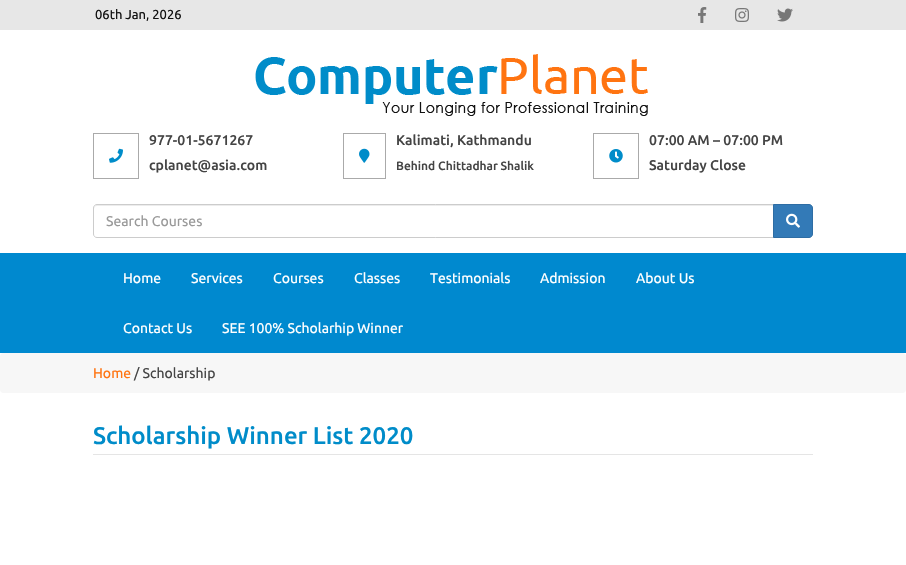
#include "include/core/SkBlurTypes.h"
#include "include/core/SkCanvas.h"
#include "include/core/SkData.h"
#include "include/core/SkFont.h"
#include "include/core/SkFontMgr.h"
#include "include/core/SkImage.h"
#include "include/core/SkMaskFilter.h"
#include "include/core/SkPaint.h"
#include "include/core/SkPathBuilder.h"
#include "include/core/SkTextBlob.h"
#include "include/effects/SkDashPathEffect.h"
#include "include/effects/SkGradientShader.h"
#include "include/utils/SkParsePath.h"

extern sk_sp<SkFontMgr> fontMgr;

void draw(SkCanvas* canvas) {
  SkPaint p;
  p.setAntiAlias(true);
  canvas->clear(SK_ColorWHITE);
  p.setColor(SkColorSetRGB(231, 231, 231));
  canvas->drawRect(SkRect::MakeLTRB(0, 0, 906, 30), p);
  canvas->drawImageRect(SkImages::DeferredFromEncodedData(SkData::MakeFromFileName("images/1.png")), SkRect::MakeLTRB(698, 7, 707, 23), SkSamplingOptions());
  canvas->drawImageRect(SkImages::DeferredFromEncodedData(SkData::MakeFromFileName("images/2.png")), SkRect::MakeLTRB(735, 8, 749, 22), SkSamplingOptions());
  canvas->drawImageRect(SkImages::DeferredFromEncodedData(SkData::MakeFromFileName("images/3.png")), SkRect::MakeLTRB(777, 8, 793, 22), SkSamplingOptions());
  canvas->drawImageRect(SkImages::DeferredFromEncodedData(SkData::MakeFromFileName("images/4.png")), SkRect::MakeLTRB(255, 54, 648, 116), SkSamplingOptions());
  p.setStyle(SkPaint::kStroke_Style);
  p.setStrokeWidth(1);
  p.setColor(SkColorSetRGB(170, 170, 170));
  canvas->drawRect(SkRect::MakeLTRB(93.5f, 133.5f, 138.5f, 178.5f), p);
  canvas->drawImageRect(SkImages::DeferredFromEncodedData(SkData::MakeFromFileName("images/5.png")), SkRect::MakeLTRB(109, 148, 123, 163), SkSamplingOptions());
  canvas->drawRect(SkRect::MakeLTRB(343.5f, 133.5f, 385.5f, 178.5f), p);
  canvas->drawImageRect(SkImages::DeferredFromEncodedData(SkData::MakeFromFileName("images/6.png")), SkRect::MakeLTRB(359, 148, 370, 163), SkSamplingOptions());
  canvas->drawRect(SkRect::MakeLTRB(593.5f, 133.5f, 638.5f, 178.5f), p);
  canvas->drawImageRect(SkImages::DeferredFromEncodedData(SkData::MakeFromFileName("images/7.png")), SkRect::MakeLTRB(609, 149, 623, 163), SkSamplingOptions());
  p.setStyle(SkPaint::kFill_Style);
  p.setColor(SkColorSetRGB(236, 236, 236));
  canvas->drawPath(SkPathBuilder().moveTo(97, 206).lineTo(773, 206).lineTo(773, 205).lineTo(97, 205).cubicTo(95, 205, 94, 206, 94, 208).lineTo(94, 209).cubicTo(94, 207, 95, 206, 97, 206).close().detach(), p);
  p.setStyle(SkPaint::kStroke_Style);
  p.setColor(SkColorSetRGB(204, 204, 204));
  canvas->drawPath(SkPathBuilder().moveTo(97, 204.5f).lineTo(773.5f, 204.5f).lineTo(773.5f, 237.5f).lineTo(97, 237.5f).cubicTo(95, 237.5f, 93.5f, 236, 93.5f, 234).lineTo(93.5f, 208).cubicTo(93.5f, 206, 95, 204.5f, 97, 204.5f).close().detach(), p);
  p.setStyle(SkPaint::kFill_Style);
  p.setColor(SkColorSetRGB(51, 122, 183));
  canvas->drawPath(SkPathBuilder().moveTo(773.5f, 204.5f).lineTo(809, 204.5f).cubicTo(811, 204.5f, 812.5f, 206, 812.5f, 208).lineTo(812.5f, 234).cubicTo(812.5f, 236, 811, 237.5f, 809, 237.5f).lineTo(773.5f, 237.5f).close().detach(), p);
  p.setStyle(SkPaint::kStroke_Style);
  p.setColor(SkColorSetRGB(46, 109, 164));
  canvas->drawPath(SkPathBuilder().moveTo(773.5f, 204.5f).lineTo(809, 204.5f).cubicTo(811, 204.5f, 812.5f, 206, 812.5f, 208).lineTo(812.5f, 234).cubicTo(812.5f, 236, 811, 237.5f, 809, 237.5f).lineTo(773.5f, 237.5f).close().detach(), p);
  canvas->drawImageRect(SkImages::DeferredFromEncodedData(SkData::MakeFromFileName("images/8.png")), SkRect::MakeLTRB(786, 213, 800, 228), SkSamplingOptions());
  p.setStyle(SkPaint::kFill_Style);
  p.setColor(SkColorSetRGB(0, 137, 207));
  canvas->drawRect(SkRect::MakeLTRB(0, 253, 906, 353), p);
  p.setColor(SkColorSetRGB(247, 247, 247));
  canvas->drawRoundRect(SkRect::MakeLTRB(0, 353, 906, 393), 4, 4, p);
  p.setColor(SkColorSetRGB(229, 229, 229));
  canvas->drawRect(SkRect::MakeLTRB(93, 454, 813, 455), p);
  SkFont font1(fontMgr->matchFamilyStyle("Ubuntu", SkFontStyle::Normal()), 13);
  font1.setSubpixel(true);
  p.setColor(SkColorSetRGB(17, 17, 17));
  canvas->drawString("06th Jan, 2026", 95, 19, font1, p);
  SkFont font2(fontMgr->matchFamilyStyle("Ubuntu", SkFontStyle(500, SkFontStyle::kNormal_Width, SkFontStyle::kUpright_Slant)), 14);
  font2.setSubpixel(true);
  p.setColor(SkColorSetRGB(68, 68, 68));
  canvas->drawString("977-01-5671267", 149, 145, font2, p);
  canvas->drawString("cplanet@asia.com", 149, 170, font2, p);
  canvas->drawString("Kalimati, Kathmandu", 396, 145, font2, p);
  SkFont font3(fontMgr->matchFamilyStyle("Ubuntu", SkFontStyle(500, SkFontStyle::kNormal_Width, SkFontStyle::kUpright_Slant)), 12);
  font3.setSubpixel(true);
  canvas->drawString("Behind Chittadhar Shalik", 396, 170, font3, p);
  canvas->drawString("07:00 AM – 07:00 PM", 649, 145, font2, p);
  canvas->drawString("Saturday Close", 649, 170, font2, p);
  SkFont font4(fontMgr->matchFamilyStyle("Ubuntu", SkFontStyle::Normal()), 14);
  font4.setSubpixel(true);
  p.setColor(SkColorSetRGB(153, 153, 153));
  canvas->drawString("Search Courses", 106, 226, font4, p);
  p.setColor(SK_ColorWHITE);
  canvas->drawString("Home", 123, 283, font4, p);
  canvas->drawString("Services", 191, 283, font4, p);
  canvas->drawString("Courses", 273, 283, font4, p);
  canvas->drawString("Classes", 354, 283, font4, p);
  canvas->drawString("Testimonials", 430, 283, font4, p);
  canvas->drawString("Admission", 540, 283, font4, p);
  canvas->drawString("About Us", 636, 283, font4, p);
  canvas->drawString("Contact Us", 123, 333, font4, p);
  canvas->drawString("SEE 100% Scholarhip Winner", 222, 333, font4, p);
  p.setColor(SkColorSetRGB(255, 116, 17));
  canvas->drawString("Home", 93, 378, font4, p);
  p.setColor(SkColorSetRGB(68, 68, 68));
  canvas->drawString("/ Scholarship", 134, 378, font4, p);
  SkFont font5(fontMgr->matchFamilyStyle("Ubuntu", SkFontStyle(500, SkFontStyle::kNormal_Width, SkFontStyle::kUpright_Slant)), 24);
  font5.setSubpixel(true);
  p.setColor(SkColorSetRGB(0, 140, 201));
  canvas->drawString("Scholarship Winner List 2020", 93, 444, font5, p);
}
